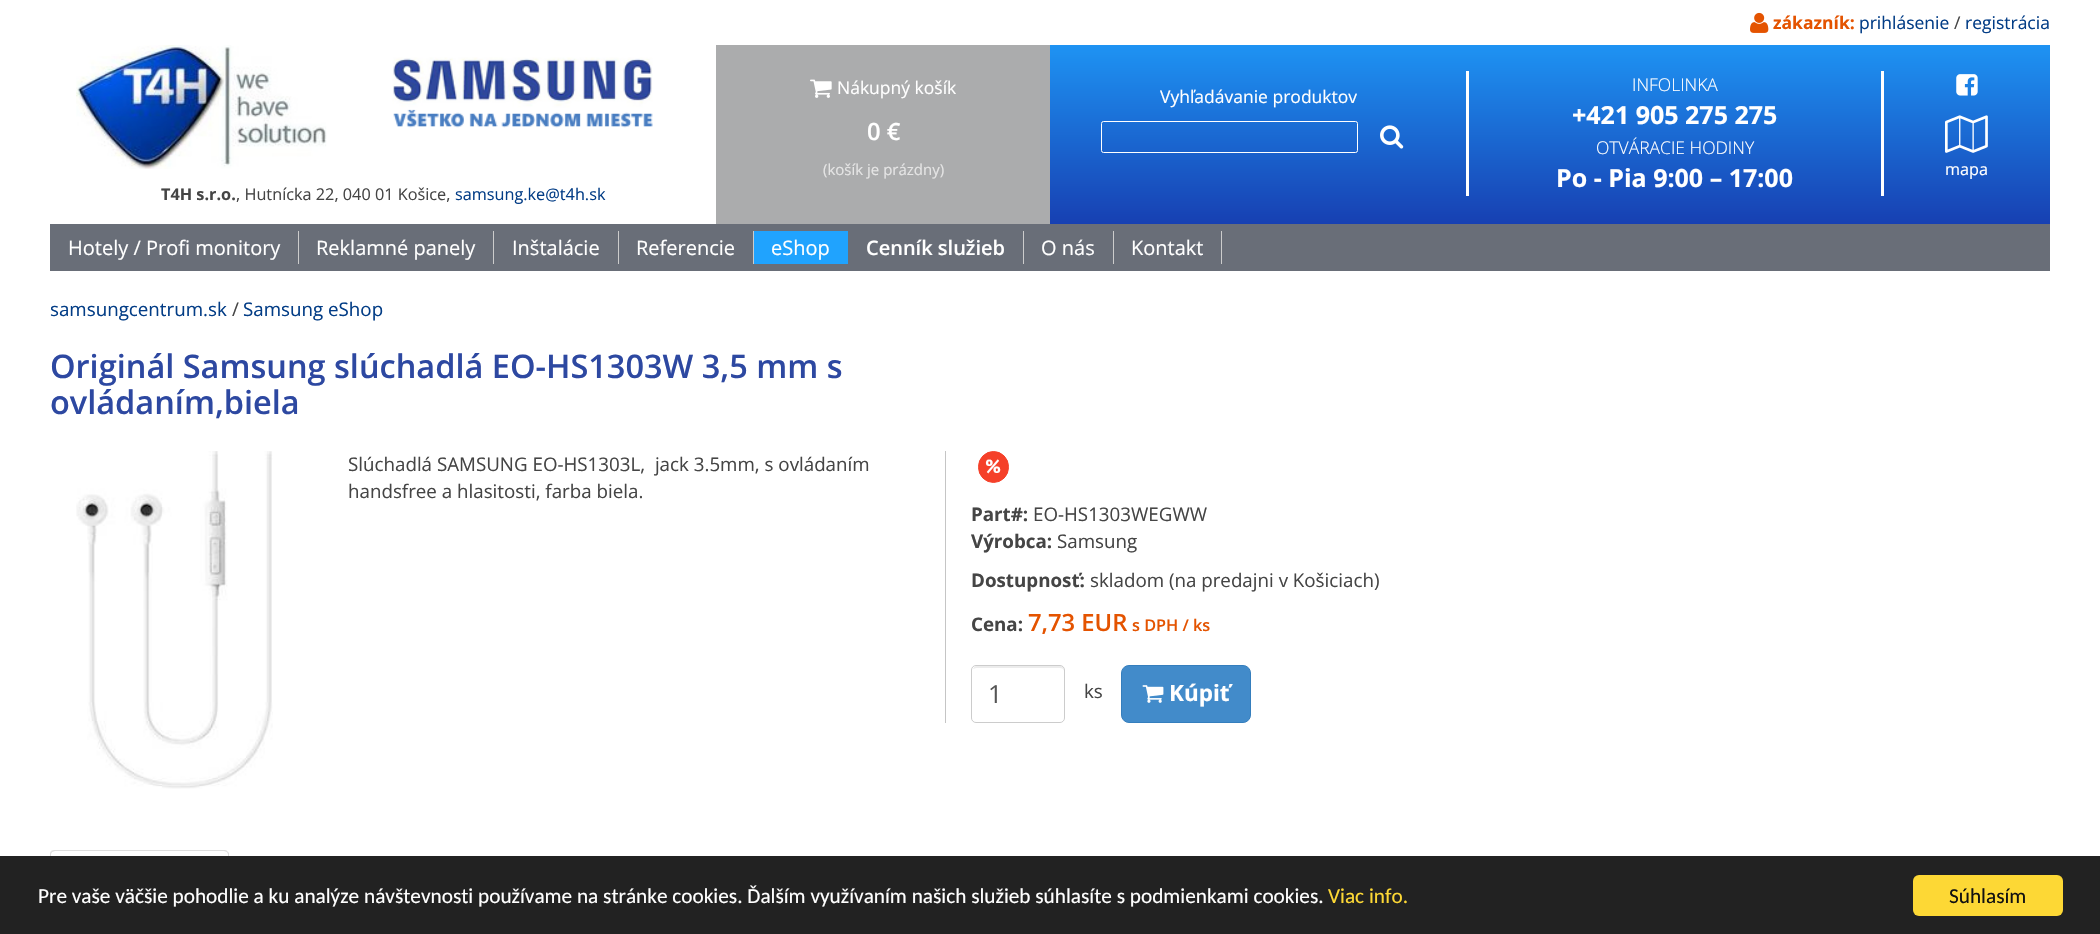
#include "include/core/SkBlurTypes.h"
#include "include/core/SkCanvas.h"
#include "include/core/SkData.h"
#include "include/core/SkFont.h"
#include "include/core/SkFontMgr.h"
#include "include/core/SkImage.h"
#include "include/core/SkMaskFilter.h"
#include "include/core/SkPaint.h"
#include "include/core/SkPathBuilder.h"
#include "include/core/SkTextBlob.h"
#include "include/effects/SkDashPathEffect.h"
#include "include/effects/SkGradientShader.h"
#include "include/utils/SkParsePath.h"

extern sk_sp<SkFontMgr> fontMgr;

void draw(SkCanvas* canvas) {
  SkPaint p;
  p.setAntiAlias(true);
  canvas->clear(SK_ColorWHITE);
  canvas->drawImageRect(SkImages::DeferredFromEncodedData(SkData::MakeFromFileName("images/1.png")), SkRect::MakeLTRB(1750, 12, 1769, 33), SkSamplingOptions());
  p.setColor(SkColorSetRGB(171, 172, 173));
  canvas->drawRect(SkRect::MakeLTRB(716, 45, 1050, 224), p);
  canvas->drawImageRect(SkImages::DeferredFromEncodedData(SkData::MakeFromFileName("images/2.png")), SkRect::MakeLTRB(810, 79, 832, 98), SkSamplingOptions());
  {
    const SkColor colors[] = {SkColorSetRGB(30, 147, 243), SkColorSetRGB(23, 64, 178)};
    const float stops[] = {0, 1};
    const SkPoint ends[] = {{1550, 45}, {1550, 224}};
    p.setShader(SkGradientShader::MakeLinear(ends, colors, stops, 2, SkTileMode::kClamp));
    p.setAlpha(255);
  }
  canvas->drawRect(SkRect::MakeLTRB(1050, 45, 2050, 224), p);
  p.setStyle(SkPaint::kStroke_Style);
  p.setStrokeWidth(1);
  p.setShader(nullptr);
  p.setColor(SK_ColorWHITE);
  canvas->drawRoundRect(SkRect::MakeLTRB(1101.5f, 121.5f, 1357.5f, 152.5f), 2, 2, p);
  canvas->drawImageRect(SkImages::DeferredFromEncodedData(SkData::MakeFromFileName("images/3.png")), SkRect::MakeLTRB(1380, 125, 1404, 149), SkSamplingOptions());
  p.setStyle(SkPaint::kFill_Style);
  canvas->drawRect(SkRect::MakeLTRB(1881, 71, 1884, 196), p);
  canvas->drawRect(SkRect::MakeLTRB(1466, 71, 1469, 196), p);
  canvas->drawImageRect(SkImages::DeferredFromEncodedData(SkData::MakeFromFileName("images/4.png")), SkRect::MakeLTRB(1956, 74, 1978, 96), SkSamplingOptions());
  canvas->drawImageRect(SkImages::DeferredFromEncodedData(SkData::MakeFromFileName("images/5.png")), SkRect::MakeLTRB(1945, 115, 1988, 153), SkSamplingOptions());
  canvas->drawImageRect(SkImages::DeferredFromEncodedData(SkData::MakeFromFileName("images/6.png")), SkRect::MakeLTRB(76, 45, 327, 169), SkSamplingOptions());
  canvas->drawImageRect(SkImages::DeferredFromEncodedData(SkData::MakeFromFileName("images/7.png")), SkRect::MakeLTRB(392, 57, 653, 128), SkSamplingOptions());
  p.setColor(SkColorSetRGB(105, 110, 120));
  canvas->drawRect(SkRect::MakeLTRB(50, 224, 2050, 271), p);
  p.setColor(SkColorSetRGB(204, 204, 204));
  canvas->drawRect(SkRect::MakeLTRB(298, 231, 299, 264), p);
  canvas->drawRect(SkRect::MakeLTRB(493, 231, 494, 264), p);
  canvas->drawRect(SkRect::MakeLTRB(618, 231, 619, 264), p);
  canvas->drawRect(SkRect::MakeLTRB(753, 231, 754, 264), p);
  p.setColor(SkColorSetRGB(32, 163, 254));
  canvas->drawRect(SkRect::MakeLTRB(754, 231, 848, 264), p);
  p.setColor(SkColorSetRGB(204, 204, 204));
  canvas->drawRect(SkRect::MakeLTRB(1023, 231, 1024, 264), p);
  canvas->drawRect(SkRect::MakeLTRB(1113, 231, 1114, 264), p);
  canvas->drawRect(SkRect::MakeLTRB(1221, 231, 1222, 264), p);
  canvas->drawImageRect(SkImages::DeferredFromEncodedData(SkData::MakeFromFileName("images/8.png")), SkRect::MakeLTRB(76, 451, 273, 789), SkSamplingOptions());
  p.setColor(SkColorSetRGB(197, 197, 197));
  canvas->drawRect(SkRect::MakeLTRB(945, 451, 946, 723), p);
  p.setColor(SkColorSetRGB(245, 64, 41));
  canvas->drawRoundRect(SkRect::MakeLTRB(978.5f, 451.5f, 1008.5f, 482.5f), 15, 15, p);
  p.setStyle(SkPaint::kStroke_Style);
  canvas->drawRoundRect(SkRect::MakeLTRB(978.5f, 451.5f, 1008.5f, 482.5f), 15, 15, p);
  p.setStyle(SkPaint::kFill_Style);
  p.setColor(SkColorSetRGB(236, 236, 236));
  canvas->drawPath(SkPathBuilder().moveTo(976, 668).lineTo(1060, 668).cubicTo(1062, 668, 1064, 669, 1064, 671).lineTo(1064, 670).cubicTo(1064, 668, 1062, 666, 1060, 666).lineTo(977, 666).cubicTo(975, 666, 974, 667, 973, 669).close().detach(), p);
  p.setStyle(SkPaint::kStroke_Style);
  p.setColor(SkColorSetRGB(204, 204, 204));
  canvas->drawRoundRect(SkRect::MakeLTRB(971.5f, 665.5f, 1064.5f, 722.5f), 4.5f, 4.5f, p);
  p.setStyle(SkPaint::kFill_Style);
  p.setColor(SkColorSetRGB(66, 139, 202));
  canvas->drawRoundRect(SkRect::MakeLTRB(1121.5f, 665.5f, 1250.5f, 722.5f), 7.5f, 7.5f, p);
  p.setStyle(SkPaint::kStroke_Style);
  p.setColor(SkColorSetRGB(53, 126, 189));
  canvas->drawRoundRect(SkRect::MakeLTRB(1121.5f, 665.5f, 1250.5f, 722.5f), 7.5f, 7.5f, p);
  canvas->drawImageRect(SkImages::DeferredFromEncodedData(SkData::MakeFromFileName("images/9.png")), SkRect::MakeLTRB(1142, 685, 1164, 703), SkSamplingOptions());
  p.setStyle(SkPaint::kFill_Style);
  p.setColor(SkColorSetRGB(221, 221, 221));
  canvas->drawPath(SkPathBuilder().moveTo(55, 850).cubicTo(54, 850, 52, 850, 51, 851).lineTo(52, 852).lineTo(55, 851).lineTo(224, 851).lineTo(227, 852).lineTo(227, 851).cubicTo(227, 850, 225, 850, 224, 850).close().detach(), p);
  canvas->drawPath(SkPathBuilder().moveTo(229, 853).lineTo(229, 905).lineTo(228, 904).lineTo(228, 854).lineTo(227, 852).lineTo(227, 851).close().detach(), p);
  canvas->drawPath(SkPathBuilder().moveTo(50, 905).lineTo(51, 904).lineTo(51, 854).lineTo(52, 852).lineTo(51, 851).cubicTo(50, 852, 50, 854, 50, 855).close().detach(), p);
  p.setColor(SkColorSetRGB(34, 34, 34));
  canvas->drawRect(SkRect::MakeLTRB(0, 856, 2100, 934), p);
  p.setColor(SkColorSetRGB(253, 216, 53));
  canvas->drawRoundRect(SkRect::MakeLTRB(1913, 875, 2063, 916), 6, 6, p);
  SkFont font1(fontMgr->matchFamilyStyle("Open Sans", SkFontStyle::Bold()), 17.5f);
  font1.setSubpixel(true);
  p.setColor(SkColorSetRGB(228, 83, 0));
  canvas->drawString("zákazník:", 1773, 29, font1, p);
  SkFont font2(fontMgr->matchFamilyStyle("Open Sans", SkFontStyle::Normal()), 17.5f);
  font2.setSubpixel(true);
  p.setColor(SkColorSetRGB(3, 61, 134));
  canvas->drawString("prihlásenie", 1859, 29, font2, p);
  p.setColor(SkColorSetRGB(69, 69, 69));
  canvas->drawString("/", 1954, 29, font2, p);
  p.setColor(SkColorSetRGB(3, 61, 134));
  canvas->drawString("registrácia", 1965, 29, font2, p);
  p.setColor(SK_ColorWHITE);
  canvas->drawString("Nákupný košík", 837, 94, font2, p);
  SkFont font3(fontMgr->matchFamilyStyle("Open Sans", SkFontStyle(600, SkFontStyle::kNormal_Width, SkFontStyle::kUpright_Slant)), 23.75f);
  font3.setSubpixel(true);
  canvas->drawString("0 €", 867, 140, font3, p);
  SkFont font4(fontMgr->matchFamilyStyle("Open Sans", SkFontStyle::Normal()), 15);
  font4.setSubpixel(true);
  p.setColor(SkColorSetRGB(229, 229, 229));
  canvas->drawString("(košík je prázdny)", 823, 175, font4, p);
  p.setColor(SK_ColorWHITE);
  canvas->drawString("Vyhľadávanie produktov", 1160, 103, font2, p);
  SkFont font5(fontMgr->matchFamilyStyle("Open Sans", SkFontStyle(300, SkFontStyle::kNormal_Width, SkFontStyle::kUpright_Slant)), 17.5f);
  font5.setSubpixel(true);
  canvas->drawString("INFOLINKA", 1632, 91, font5, p);
  SkFont font6(fontMgr->matchFamilyStyle("Open Sans", SkFontStyle::Bold()), 25);
  font6.setSubpixel(true);
  canvas->drawString("+421 905 275 275", 1572, 124, font6, p);
  canvas->drawString("OTVÁRACIE HODINY", 1596, 154, font5, p);
  canvas->drawString("Po - Pia 9:00 – 17:00", 1556, 187, font6, p);
  SkFont font7(fontMgr->matchFamilyStyle("Open Sans", SkFontStyle::Normal()), 16.25f);
  font7.setSubpixel(true);
  canvas->drawString("mapa", 1945, 175, font7, p);
  SkFont font8(fontMgr->matchFamilyStyle("Open Sans", SkFontStyle::Bold()), 16.25f);
  font8.setSubpixel(true);
  p.setColor(SkColorSetRGB(69, 69, 69));
  canvas->drawString("T4H s.r.o.", 161, 200, font8, p);
  canvas->drawString(", Hutnícka 22, 040 01 Košice,", 236, 200, font7, p);
  p.setColor(SkColorSetRGB(3, 61, 134));
  canvas->drawString("samsung.ke@t4h.sk", 455, 200, font7, p);
  SkFont font9(fontMgr->matchFamilyStyle("Open Sans", SkFontStyle::Normal()), 20);
  font9.setSubpixel(true);
  p.setColor(SK_ColorWHITE);
  canvas->drawString("Hotely / Profi monitory", 68, 255, font9, p);
  canvas->drawString("Reklamné panely", 316, 255, font9, p);
  canvas->drawString("Inštalácie", 512, 255, font9, p);
  canvas->drawString("Referencie", 636, 255, font9, p);
  canvas->drawString("eShop", 771, 255, font9, p);
  SkFont font10(fontMgr->matchFamilyStyle("Open Sans", SkFontStyle(600, SkFontStyle::kNormal_Width, SkFontStyle::kUpright_Slant)), 20);
  font10.setSubpixel(true);
  canvas->drawString("Cenník služieb", 866, 255, font10, p);
  canvas->drawString("O nás", 1041, 255, font9, p);
  canvas->drawString("Kontakt", 1131, 255, font9, p);
  SkFont font11(fontMgr->matchFamilyStyle("Open Sans", SkFontStyle::Normal()), 18.75f);
  font11.setSubpixel(true);
  p.setColor(SkColorSetRGB(3, 61, 134));
  canvas->drawString("samsungcentrum.sk", 50, 316, font11, p);
  p.setColor(SkColorSetRGB(69, 69, 69));
  canvas->drawString("/", 232, 316, font11, p);
  p.setColor(SkColorSetRGB(3, 61, 134));
  canvas->drawString("Samsung eShop", 243, 316, font11, p);
  SkFont font12(fontMgr->matchFamilyStyle("Open Sans", SkFontStyle(600, SkFontStyle::kNormal_Width, SkFontStyle::kUpright_Slant)), 32.5f);
  font12.setSubpixel(true);
  p.setColor(SkColorSetRGB(45, 72, 161));
  canvas->drawString("Originál Samsung slúchadlá EO-HS1303W 3,5 mm s", 50, 378, font12, p);
  canvas->drawString("ovládaním,biela", 50, 414, font12, p);
  p.setColor(SkColorSetRGB(69, 69, 69));
  canvas->drawString("Slúchadlá SAMSUNG EO-HS1303L,  jack 3.5mm, s ovládaním", 348, 471, font11, p);
  canvas->drawString("handsfree a hlasitosti, farba biela.", 348, 498, font11, p);
  SkFont font13(fontMgr->matchFamilyStyle("PT Sans", SkFontStyle::Bold()), 18.75f);
  font13.setSubpixel(true);
  p.setColor(SK_ColorWHITE);
  canvas->drawString("%", 985, 473, font13, p);
  SkFont font14(fontMgr->matchFamilyStyle("Open Sans", SkFontStyle::Bold()), 18.75f);
  font14.setSubpixel(true);
  p.setColor(SkColorSetRGB(69, 69, 69));
  canvas->drawString("Part#:", 971, 521, font14, p);
  canvas->drawString("EO-HS1303WEGWW", 1033, 521, font11, p);
  canvas->drawString("Výrobca:", 971, 548, font14, p);
  canvas->drawString("Samsung", 1057, 548, font11, p);
  canvas->drawString("Dostupnosť:", 971, 587, font14, p);
  canvas->drawString("skladom (na predajni v Košiciach)", 1090, 587, font11, p);
  canvas->drawString("Cena:", 971, 631, font14, p);
  p.setColor(SkColorSetRGB(228, 83, 0));
  canvas->drawString("7,73 EUR", 1028, 631, font3, p);
  SkFont font15(fontMgr->matchFamilyStyle("Open Sans", SkFontStyle(600, SkFontStyle::kNormal_Width, SkFontStyle::kUpright_Slant)), 16.25f);
  font15.setSubpixel(true);
  canvas->drawString("s DPH / ks", 1132, 631, font15, p);
  SkFont font16(fontMgr->matchFamilyStyle("Open Sans", SkFontStyle::Normal()), 25);
  font16.setSubpixel(true);
  p.setColor(SkColorSetRGB(85, 85, 85));
  canvas->drawString("1", 988, 703, font16, p);
  p.setColor(SkColorSetRGB(69, 69, 69));
  canvas->drawString("ks", 1084, 698, font11, p);
  SkFont font17(fontMgr->matchFamilyStyle("Open Sans", SkFontStyle::Bold()), 22.5f);
  font17.setSubpixel(true);
  p.setColor(SK_ColorWHITE);
  canvas->drawString("Kúpiť", 1169, 701, font17, p);
  SkFont font18(fontMgr->matchFamilyStyle("Carlito", SkFontStyle::Normal()), 21.25f);
  font18.setSubpixel(true);
  canvas->drawString("Pre vaše väčšie pohodlie a ku analýze návštevnosti používame na stránke cookies. Ďalším využívaním našich služieb súhlasíte s podmienkami cookies.", 38, 903, font18, p);
  p.setColor(SkColorSetRGB(253, 216, 53));
  canvas->drawString("Viac info.", 1328, 903, font18, p);
  p.setColor(SkColorSetRGB(17, 17, 17));
  canvas->drawString("Súhlasím", 1949, 903, font18, p);
}
